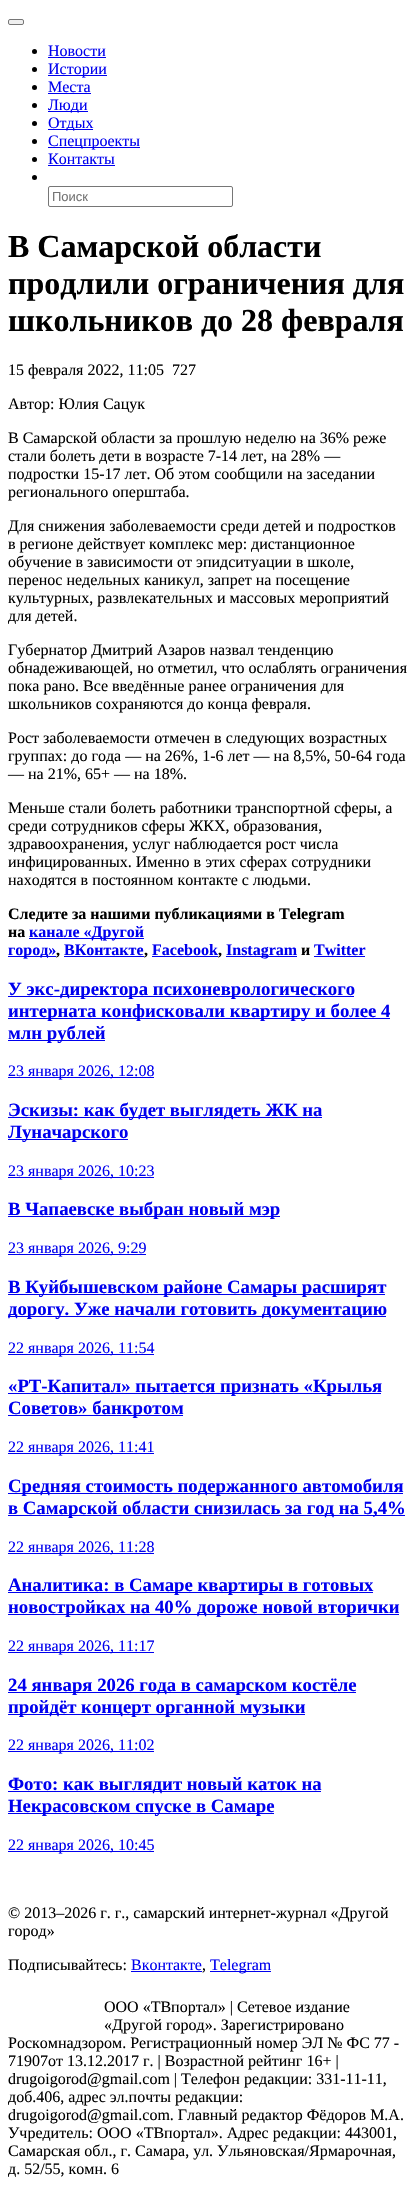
#include "include/core/SkBlurTypes.h"
#include "include/core/SkCanvas.h"
#include "include/core/SkData.h"
#include "include/core/SkFont.h"
#include "include/core/SkFontMgr.h"
#include "include/core/SkImage.h"
#include "include/core/SkMaskFilter.h"
#include "include/core/SkPaint.h"
#include "include/core/SkPathBuilder.h"
#include "include/core/SkTextBlob.h"
#include "include/effects/SkDashPathEffect.h"
#include "include/effects/SkGradientShader.h"
#include "include/utils/SkParsePath.h"

extern sk_sp<SkFontMgr> fontMgr;

void draw(SkCanvas* canvas) {
  SkPaint p;
  p.setAntiAlias(true);
  canvas->clear(SK_ColorWHITE);
  p.setColor(SkColorSetRGB(239, 239, 239));
  canvas->drawRoundRect(SkRect::MakeLTRB(8.5f, 19.5f, 23.5f, 24.5f), 1.5f, 1.5f, p);
  p.setStyle(SkPaint::kStroke_Style);
  p.setStrokeWidth(1);
  p.setColor(SkColorSetRGB(118, 118, 118));
  canvas->drawRoundRect(SkRect::MakeLTRB(8.5f, 19.5f, 23.5f, 24.5f), 1.5f, 1.5f, p);
  p.setStyle(SkPaint::kFill_Style);
  p.setColor(SK_ColorBLACK);
  canvas->drawCircle(34.5f, 51.5f, 2.5f, p);
  p.setColor(SkColorSetRGB(0, 0, 238));
  canvas->drawRect(SkRect::MakeLTRB(48, 57, 106, 58), p);
  p.setColor(SK_ColorBLACK);
  canvas->drawCircle(34.5f, 69.5f, 2.5f, p);
  p.setColor(SkColorSetRGB(0, 0, 238));
  canvas->drawRect(SkRect::MakeLTRB(48, 75, 107, 76), p);
  p.setColor(SK_ColorBLACK);
  canvas->drawCircle(34.5f, 87.5f, 2.5f, p);
  p.setColor(SkColorSetRGB(0, 0, 238));
  canvas->drawRect(SkRect::MakeLTRB(48, 93, 91, 94), p);
  p.setColor(SK_ColorBLACK);
  canvas->drawCircle(34.5f, 105.5f, 2.5f, p);
  p.setColor(SkColorSetRGB(0, 0, 238));
  canvas->drawRect(SkRect::MakeLTRB(48, 111, 88, 112), p);
  p.setColor(SK_ColorBLACK);
  canvas->drawCircle(34.5f, 123.5f, 2.5f, p);
  p.setColor(SkColorSetRGB(0, 0, 238));
  canvas->drawRect(SkRect::MakeLTRB(48, 129, 93, 130), p);
  p.setColor(SK_ColorBLACK);
  canvas->drawCircle(34.5f, 141.5f, 2.5f, p);
  p.setColor(SkColorSetRGB(0, 0, 238));
  canvas->drawRect(SkRect::MakeLTRB(48, 147, 140, 148), p);
  p.setColor(SK_ColorBLACK);
  canvas->drawCircle(34.5f, 159.5f, 2.5f, p);
  p.setColor(SkColorSetRGB(0, 0, 238));
  canvas->drawRect(SkRect::MakeLTRB(48, 165, 115, 166), p);
  p.setColor(SK_ColorBLACK);
  canvas->drawCircle(34.5f, 177.5f, 2.5f, p);
  p.setStyle(SkPaint::kStroke_Style);
  p.setColor(SkColorSetRGB(118, 118, 118));
  canvas->drawRoundRect(SkRect::MakeLTRB(48.5f, 186.5f, 232.5f, 206.5f), 1.5f, 1.5f, p);
  p.setStyle(SkPaint::kFill_Style);
  p.setColor(SkColorSetRGB(0, 0, 238));
  canvas->drawRect(SkRect::MakeLTRB(29, 938, 144, 939), p);
  canvas->drawRect(SkRect::MakeLTRB(8, 956, 56, 957), p);
  canvas->drawRect(SkRect::MakeLTRB(64, 956, 144, 957), p);
  canvas->drawRect(SkRect::MakeLTRB(152, 956, 218, 957), p);
  canvas->drawRect(SkRect::MakeLTRB(226, 956, 297, 957), p);
  canvas->drawRect(SkRect::MakeLTRB(314, 956, 365, 957), p);
  canvas->drawRect(SkRect::MakeLTRB(8, 996, 354, 997), p);
  canvas->drawRect(SkRect::MakeLTRB(8, 1018, 390, 1019), p);
  canvas->drawRect(SkRect::MakeLTRB(8, 1040, 105, 1041), p);
  canvas->drawRect(SkRect::MakeLTRB(8, 1077, 154, 1078), p);
  canvas->drawRect(SkRect::MakeLTRB(8, 1117, 322, 1118), p);
  canvas->drawRect(SkRect::MakeLTRB(8, 1139, 128, 1140), p);
  canvas->drawRect(SkRect::MakeLTRB(8, 1177, 154, 1178), p);
  canvas->drawRect(SkRect::MakeLTRB(8, 1216, 280, 1217), p);
  canvas->drawRect(SkRect::MakeLTRB(8, 1254, 146, 1255), p);
  canvas->drawRect(SkRect::MakeLTRB(8, 1294, 385, 1295), p);
  canvas->drawRect(SkRect::MakeLTRB(8, 1316, 386, 1317), p);
  canvas->drawRect(SkRect::MakeLTRB(8, 1354, 154, 1355), p);
  canvas->drawRect(SkRect::MakeLTRB(8, 1393, 381, 1394), p);
  canvas->drawRect(SkRect::MakeLTRB(8, 1415, 183, 1416), p);
  canvas->drawRect(SkRect::MakeLTRB(8, 1453, 154, 1454), p);
  canvas->drawRect(SkRect::MakeLTRB(8, 1493, 403, 1494), p);
  canvas->drawRect(SkRect::MakeLTRB(8, 1515, 405, 1516), p);
  canvas->drawRect(SkRect::MakeLTRB(8, 1553, 154, 1554), p);
  canvas->drawRect(SkRect::MakeLTRB(8, 1592, 373, 1593), p);
  canvas->drawRect(SkRect::MakeLTRB(8, 1614, 399, 1615), p);
  canvas->drawRect(SkRect::MakeLTRB(8, 1652, 154, 1653), p);
  canvas->drawRect(SkRect::MakeLTRB(8, 1692, 356, 1693), p);
  canvas->drawRect(SkRect::MakeLTRB(8, 1714, 305, 1715), p);
  canvas->drawRect(SkRect::MakeLTRB(8, 1751, 154, 1752), p);
  canvas->drawRect(SkRect::MakeLTRB(8, 1791, 321, 1792), p);
  canvas->drawRect(SkRect::MakeLTRB(8, 1813, 274, 1814), p);
  canvas->drawRect(SkRect::MakeLTRB(8, 1851, 154, 1852), p);
  canvas->drawRect(SkRect::MakeLTRB(131, 1971, 202, 1972), p);
  canvas->drawRect(SkRect::MakeLTRB(210, 1971, 271, 1972), p);
  SkFont font1(fontMgr->matchFamilyStyle("Liberation Serif", SkFontStyle::Normal()), 16);
  font1.setSubpixel(true);
  canvas->drawString("Новости", 48, 56, font1, p);
  canvas->drawString("Истории", 48, 74, font1, p);
  canvas->drawString("Места", 48, 92, font1, p);
  canvas->drawString("Люди", 48, 110, font1, p);
  canvas->drawString("Отдых", 48, 128, font1, p);
  canvas->drawString("Спецпроекты", 48, 146, font1, p);
  canvas->drawString("Контакты", 48, 164, font1, p);
  SkFont font2(fontMgr->matchFamilyStyle("Liberation Sans", SkFontStyle::Normal()), 13);
  font2.setSubpixel(true);
  p.setColor(SkColorSetRGB(117, 117, 117));
  canvas->drawString("Поиск", 52, 201, font2, p);
  SkFont font3(fontMgr->matchFamilyStyle("Liberation Serif", SkFontStyle::Bold()), 32);
  font3.setSubpixel(true);
  p.setColor(SK_ColorBLACK);
  canvas->drawString("В Самарской области", 8, 257, font3, p);
  canvas->drawString("продлили ограничения для", 8, 294, font3, p);
  canvas->drawString("школьников до 28 февраля", 8, 331, font3, p);
  canvas->drawString("15 февраля 2022, 11:05", 8, 375, font1, p);
  canvas->drawString("727", 172, 375, font1, p);
  canvas->drawString("Автор: Юлия Сацук", 8, 409, font1, p);
  canvas->drawString("В Самарской области за прошлую неделю на 36% реже", 8, 443, font1, p);
  canvas->drawString("стали болеть дети в возрасте 7-14 лет, на 28% —", 8, 461, font1, p);
  canvas->drawString("подростки 15-17 лет. Об этом сообщили на заседании", 8, 479, font1, p);
  canvas->drawString("регионального оперштаба.", 8, 497, font1, p);
  canvas->drawString("Для снижения заболеваемости среди детей и подростков", 8, 531, font1, p);
  canvas->drawString("в регионе действует комплекс мер: дистанционное", 8, 549, font1, p);
  canvas->drawString("обучение в зависимости от эпидситуации в школе,", 8, 567, font1, p);
  canvas->drawString("перенос недельных каникул, запрет на посещение", 8, 585, font1, p);
  canvas->drawString("культурных, развлекательных и массовых мероприятий", 8, 603, font1, p);
  canvas->drawString("для детей.", 8, 621, font1, p);
  canvas->drawString("Губернатор Дмитрий Азаров назвал тенденцию", 8, 655, font1, p);
  canvas->drawString("обнадеживающей, но отметил, что ослаблять ограничения", 8, 673, font1, p);
  canvas->drawString("пока рано. Все введённые ранее ограничения для", 8, 691, font1, p);
  canvas->drawString("школьников сохраняются до конца февраля.", 8, 709, font1, p);
  canvas->drawString("Рост заболеваемости отмечен в следующих возрастных", 8, 743, font1, p);
  canvas->drawString("группах: до года — на 26%, 1-6 лет — на 8,5%, 50-64 года", 8, 761, font1, p);
  canvas->drawString("— на 21%, 65+ — на 18%.", 8, 779, font1, p);
  canvas->drawString("Меньше стали болеть работники транспортной сферы, а", 8, 813, font1, p);
  canvas->drawString("среди сотрудников сферы ЖКХ, образования,", 8, 831, font1, p);
  canvas->drawString("здравоохранения, услуг наблюдается рост числа", 8, 849, font1, p);
  canvas->drawString("инфицированных. Именно в этих сферах сотрудники", 8, 867, font1, p);
  canvas->drawString("находятся в постоянном контакте с людьми.", 8, 885, font1, p);
  SkFont font4(fontMgr->matchFamilyStyle("Liberation Serif", SkFontStyle::Bold()), 16);
  font4.setSubpixel(true);
  canvas->drawString("Следите за нашими публикациями в Telegram", 8, 919, font4, p);
  canvas->drawString("на", 8, 937, font4, p);
  p.setColor(SkColorSetRGB(0, 0, 238));
  canvas->drawString("канале «Другой", 29, 937, font4, p);
  canvas->drawString("город»", 8, 955, font4, p);
  p.setColor(SK_ColorBLACK);
  canvas->drawString(",", 56, 955, font4, p);
  p.setColor(SkColorSetRGB(0, 0, 238));
  canvas->drawString("ВКонтакте", 64, 955, font4, p);
  p.setColor(SK_ColorBLACK);
  canvas->drawString(",", 144, 955, font4, p);
  p.setColor(SkColorSetRGB(0, 0, 238));
  canvas->drawString("Facebook", 152, 955, font4, p);
  p.setColor(SK_ColorBLACK);
  canvas->drawString(",", 218, 955, font4, p);
  p.setColor(SkColorSetRGB(0, 0, 238));
  canvas->drawString("Instagram", 226, 955, font4, p);
  p.setColor(SK_ColorBLACK);
  canvas->drawString("и", 301, 955, font4, p);
  p.setColor(SkColorSetRGB(0, 0, 238));
  canvas->drawString("Twitter", 314, 955, font4, p);
  SkFont font5(fontMgr->matchFamilyStyle("Liberation Serif", SkFontStyle::Bold()), 18.75f);
  font5.setSubpixel(true);
  canvas->drawString("У экс-директора психоневрологического", 8, 995, font5, p);
  canvas->drawString("интерната конфисковали квартиру и более 4", 8, 1017, font5, p);
  canvas->drawString("млн рублей", 8, 1039, font5, p);
  canvas->drawString("23 января 2026, 12:08", 8, 1076, font1, p);
  canvas->drawString("Эскизы: как будет выглядеть ЖК на", 8, 1116, font5, p);
  canvas->drawString("Луначарского", 8, 1138, font5, p);
  canvas->drawString("23 января 2026, 10:23", 8, 1176, font1, p);
  canvas->drawString("В Чапаевске выбран новый мэр", 8, 1215, font5, p);
  canvas->drawString("23 января 2026, 9:29", 8, 1253, font1, p);
  canvas->drawString("В Куйбышевском районе Самары расширят", 8, 1293, font5, p);
  canvas->drawString("дорогу. Уже начали готовить документацию", 8, 1315, font5, p);
  canvas->drawString("22 января 2026, 11:54", 8, 1353, font1, p);
  canvas->drawString("«РТ-Капитал» пытается признать «Крылья", 8, 1392, font5, p);
  canvas->drawString("Советов» банкротом", 8, 1414, font5, p);
  canvas->drawString("22 января 2026, 11:41", 8, 1452, font1, p);
  canvas->drawString("Средняя стоимость подержанного автомобиля", 8, 1492, font5, p);
  canvas->drawString("в Самарской области снизилась за год на 5,4%", 8, 1514, font5, p);
  canvas->drawString("22 января 2026, 11:28", 8, 1552, font1, p);
  canvas->drawString("Аналитика: в Самаре квартиры в готовых", 8, 1591, font5, p);
  canvas->drawString("новостройках на 40% дороже новой вторички", 8, 1613, font5, p);
  canvas->drawString("22 января 2026, 11:17", 8, 1651, font1, p);
  canvas->drawString("24 января 2026 года в самарском костёле", 8, 1691, font5, p);
  canvas->drawString("пройдёт концерт органной музыки", 8, 1713, font5, p);
  canvas->drawString("22 января 2026, 11:02", 8, 1750, font1, p);
  canvas->drawString("Фото: как выглядит новый каток на", 8, 1790, font5, p);
  canvas->drawString("Некрасовском спуске в Самаре", 8, 1812, font5, p);
  canvas->drawString("22 января 2026, 10:45", 8, 1850, font1, p);
  p.setColor(SK_ColorBLACK);
  canvas->drawString("© 2013–2026 г. г., самарский интернет-журнал «Другой", 8, 1918, font1, p);
  canvas->drawString("город»", 8, 1936, font1, p);
  canvas->drawString("Подписывайтесь:", 8, 1970, font1, p);
  p.setColor(SkColorSetRGB(0, 0, 238));
  canvas->drawString("Вконтакте", 131, 1970, font1, p);
  p.setColor(SK_ColorBLACK);
  canvas->drawString(",", 202, 1970, font1, p);
  p.setColor(SkColorSetRGB(0, 0, 238));
  canvas->drawString("Telegram", 210, 1970, font1, p);
  p.setColor(SK_ColorBLACK);
  canvas->drawString("ООО «ТВпортал» | Сетевое издание", 104, 2012, font1, p);
  canvas->drawString("«Другой город». Зарегистрировано", 104, 2030, font1, p);
  canvas->drawString("Роскомнадзором. Регистрационный номер ЭЛ № ФС 77 -", 8, 2048, font1, p);
  canvas->drawString("71907от 13.12.2017 г. | Возрастной рейтинг 16+ |", 8, 2066, font1, p);
  canvas->drawString("drugoigorod@gmail.com | Телефон редакции: 331-11-11,", 8, 2084, font1, p);
  canvas->drawString("доб.406, адрес эл.почты редакции:", 8, 2102, font1, p);
  canvas->drawString("drugoigorod@gmail.com. Главный редактор Фёдоров М.А.", 8, 2120, font1, p);
  canvas->drawString("Учредитель: ООО «ТВпортал». Адрес редакции: 443001,", 8, 2138, font1, p);
  canvas->drawString("Самарская обл., г. Самара, ул. Ульяновская/Ярмарочная,", 8, 2156, font1, p);
  canvas->drawString("д. 52/55, комн. 6", 8, 2174, font1, p);
}
